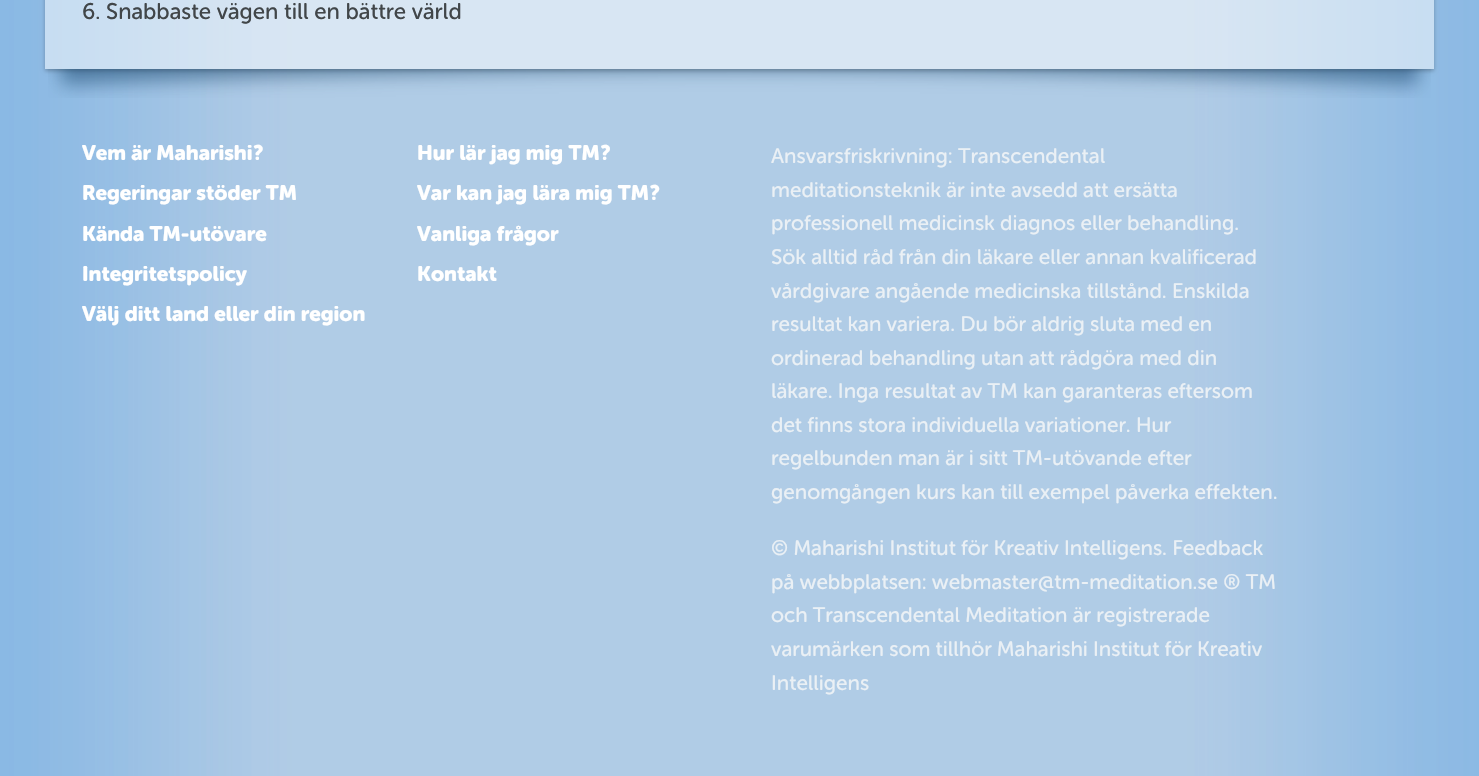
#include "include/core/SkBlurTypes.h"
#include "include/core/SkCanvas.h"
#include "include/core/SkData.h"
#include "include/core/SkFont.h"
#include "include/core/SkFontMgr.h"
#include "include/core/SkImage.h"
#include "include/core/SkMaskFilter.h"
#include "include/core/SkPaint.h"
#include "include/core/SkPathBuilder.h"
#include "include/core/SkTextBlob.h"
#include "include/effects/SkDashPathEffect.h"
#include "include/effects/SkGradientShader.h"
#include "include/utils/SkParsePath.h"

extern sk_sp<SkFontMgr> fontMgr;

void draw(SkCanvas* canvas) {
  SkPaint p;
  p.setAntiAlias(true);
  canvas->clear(SK_ColorWHITE);
  canvas->drawImageRect(SkImages::DeferredFromEncodedData(SkData::MakeFromFileName("images/1.png")), SkRect::MakeLTRB(0, 0, 1479, 776), SkSamplingOptions());
  canvas->save();
  canvas->clipPath(SkPathBuilder(SkPathFillType::kEvenOdd).moveTo(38, 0).lineTo(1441, 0).lineTo(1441, 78).lineTo(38, 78).close().moveTo(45, -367).lineTo(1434, -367).lineTo(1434, 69).lineTo(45, 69).close().detach(), true);
  p.setColor(SkColorSetARGB(64, 0, 0, 0));
  p.setMaskFilter(SkMaskFilter::MakeBlur(kNormal_SkBlurStyle, 2));
  canvas->drawRect(SkRect::MakeLTRB(45, -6, 1434, 71), p);
  p.setMaskFilter(nullptr);
  canvas->restore();
  p.setColor(SkColorSetARGB(128, 255, 255, 255));
  canvas->drawRect(SkRect::MakeLTRB(45, 0, 1434, 69), p);
  canvas->drawImageRect(SkImages::DeferredFromEncodedData(SkData::MakeFromFileName("images/2.png")), SkRect::MakeLTRB(48, 69, 1431, 98), SkSamplingOptions());
  SkFont font1(fontMgr->matchFamilyStyle("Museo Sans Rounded", SkFontStyle::Normal()), 22.5f);
  font1.setSubpixel(true);
  p.setColor(SkColorSetRGB(65, 70, 73));
  canvas->drawString("6. Snabbaste vägen till en bättre värld", 82, 19, font1, p);
  SkFont font2(fontMgr->matchFamilyStyle("Museo Sans Rounded", SkFontStyle::Bold()), 21);
  font2.setSubpixel(true);
  p.setColor(SK_ColorWHITE);
  canvas->drawString("Vem är Maharishi?", 82, 160, font2, p);
  canvas->drawString("Regeringar stöder TM", 82, 200, font2, p);
  canvas->drawString("Kända TM-utövare", 82, 241, font2, p);
  canvas->drawString("Integritetspolicy", 82, 281, font2, p);
  canvas->drawString("Välj ditt land eller din region", 82, 321, font2, p);
  canvas->drawString("Hur lär jag mig TM?", 417, 160, font2, p);
  canvas->drawString("Var kan jag lära mig TM?", 417, 200, font2, p);
  canvas->drawString("Vanliga frågor", 417, 241, font2, p);
  canvas->drawString("Kontakt", 417, 281, font2, p);
  SkFont font3(fontMgr->matchFamilyStyle("Museo Sans Rounded", SkFontStyle::Normal()), 21);
  font3.setSubpixel(true);
  p.setColor(SkColorSetRGB(234, 240, 245));
  canvas->drawString("Ansvarsfriskrivning: Transcendental", 771, 163, font3, p);
  canvas->drawString("meditationsteknik är inte avsedd att ersätta", 771, 197, font3, p);
  canvas->drawString("professionell medicinsk diagnos eller behandling.", 771, 230, font3, p);
  canvas->drawString("Sök alltid råd från din läkare eller annan kvalificerad", 771, 264, font3, p);
  canvas->drawString("vårdgivare angående medicinska tillstånd. Enskilda", 771, 298, font3, p);
  canvas->drawString("resultat kan variera. Du bör aldrig sluta med en", 771, 331, font3, p);
  canvas->drawString("ordinerad behandling utan att rådgöra med din", 771, 365, font3, p);
  canvas->drawString("läkare. Inga resultat av TM kan garanteras eftersom", 771, 398, font3, p);
  canvas->drawString("det finns stora individuella variationer. Hur", 771, 432, font3, p);
  canvas->drawString("regelbunden man är i sitt TM-utövande efter", 771, 465, font3, p);
  canvas->drawString("genomgången kurs kan till exempel påverka effekten.", 771, 499, font3, p);
  canvas->drawString("© Maharishi Institut för Kreativ Intelligens. Feedback", 771, 555, font3, p);
  canvas->drawString("på webbplatsen: webmaster@tm-meditation.se ® TM", 771, 589, font3, p);
  canvas->drawString("och Transcendental Meditation är registrerade", 771, 622, font3, p);
  canvas->drawString("varumärken som tillhör Maharishi Institut för Kreativ", 771, 656, font3, p);
  canvas->drawString("Intelligens", 771, 690, font3, p);
}
